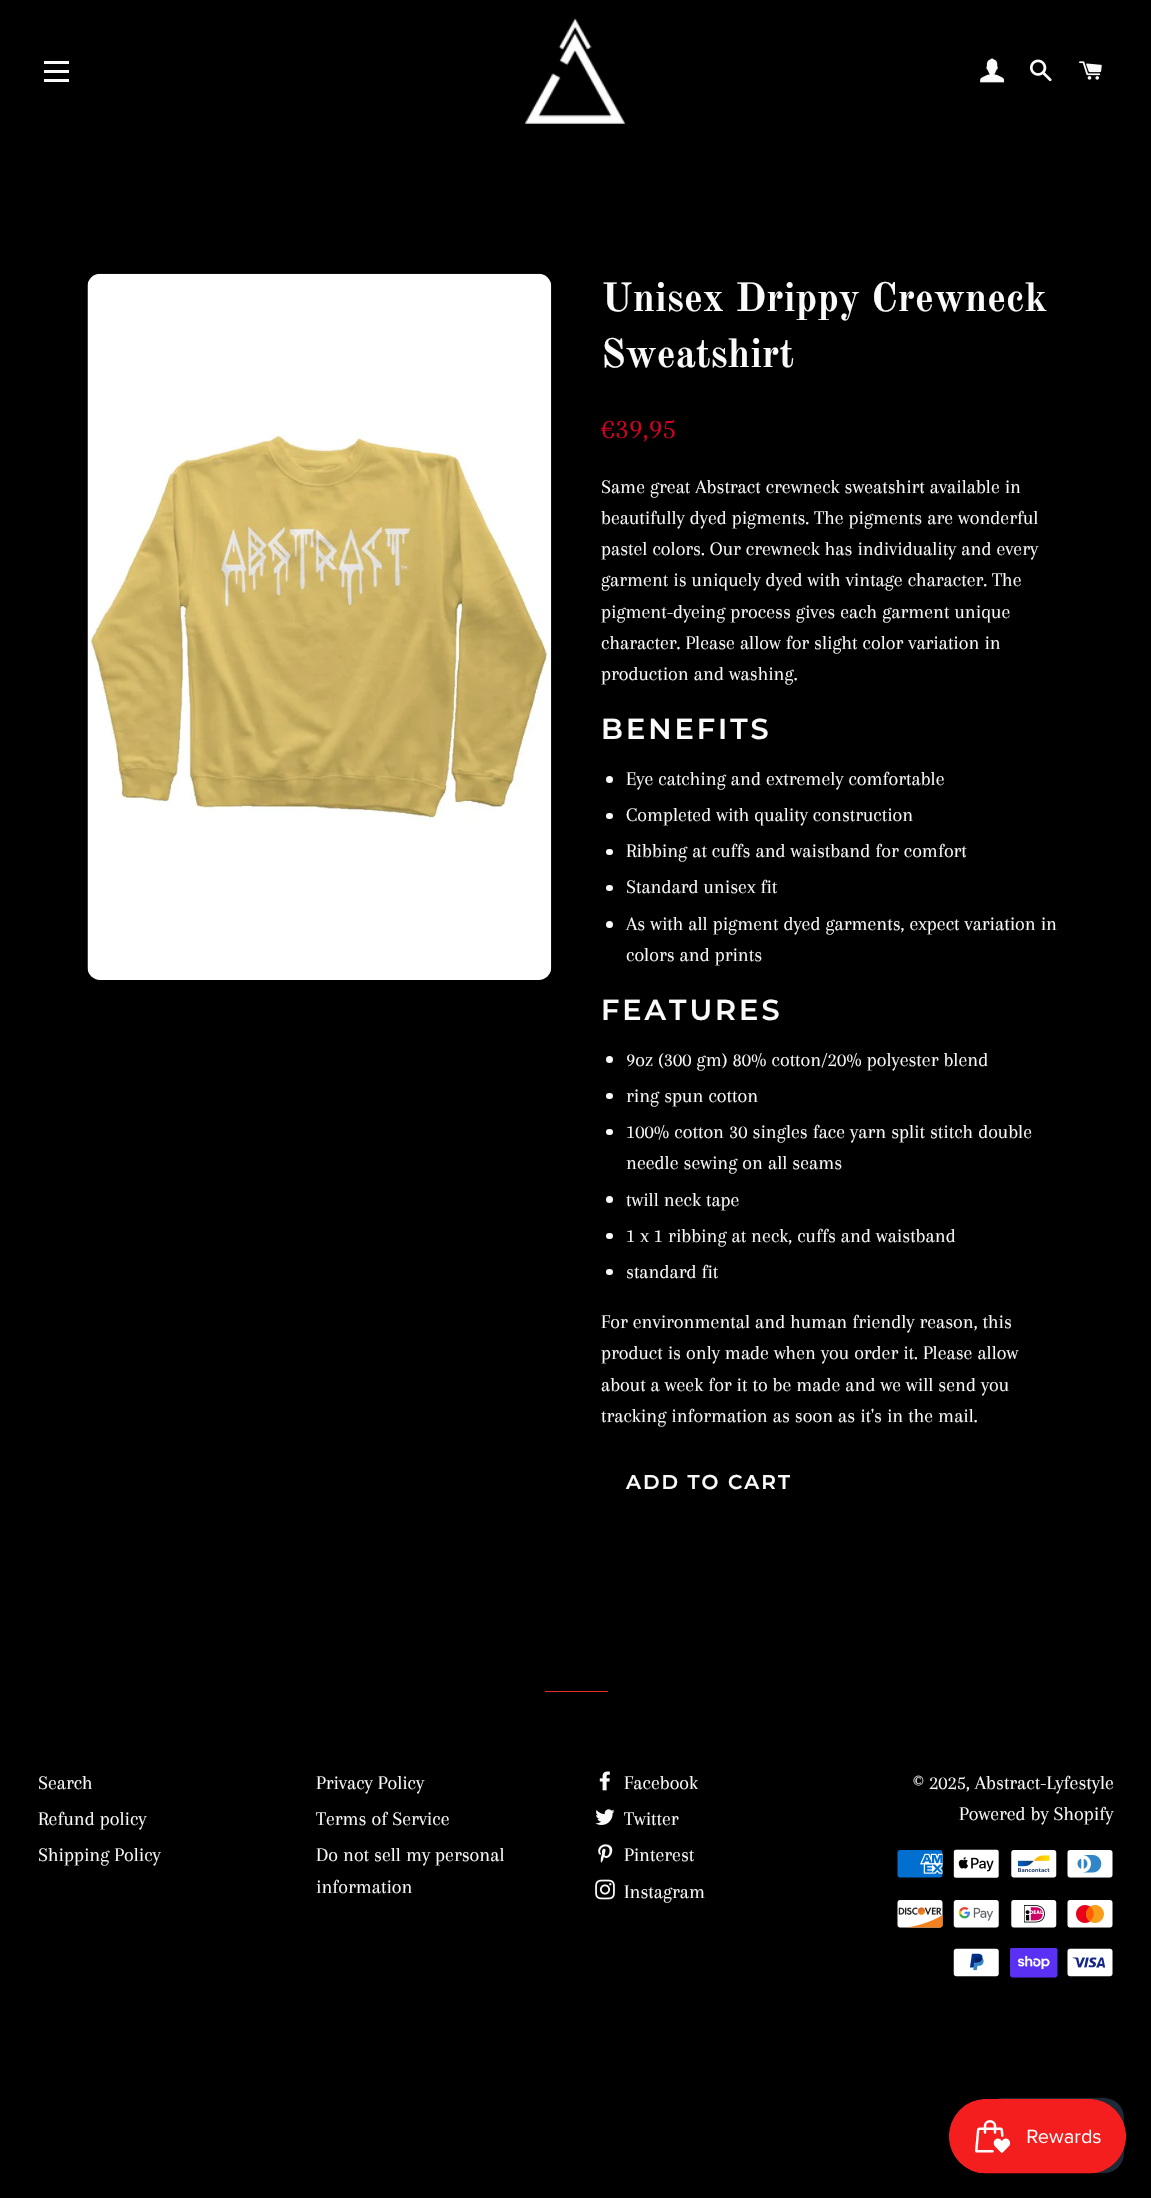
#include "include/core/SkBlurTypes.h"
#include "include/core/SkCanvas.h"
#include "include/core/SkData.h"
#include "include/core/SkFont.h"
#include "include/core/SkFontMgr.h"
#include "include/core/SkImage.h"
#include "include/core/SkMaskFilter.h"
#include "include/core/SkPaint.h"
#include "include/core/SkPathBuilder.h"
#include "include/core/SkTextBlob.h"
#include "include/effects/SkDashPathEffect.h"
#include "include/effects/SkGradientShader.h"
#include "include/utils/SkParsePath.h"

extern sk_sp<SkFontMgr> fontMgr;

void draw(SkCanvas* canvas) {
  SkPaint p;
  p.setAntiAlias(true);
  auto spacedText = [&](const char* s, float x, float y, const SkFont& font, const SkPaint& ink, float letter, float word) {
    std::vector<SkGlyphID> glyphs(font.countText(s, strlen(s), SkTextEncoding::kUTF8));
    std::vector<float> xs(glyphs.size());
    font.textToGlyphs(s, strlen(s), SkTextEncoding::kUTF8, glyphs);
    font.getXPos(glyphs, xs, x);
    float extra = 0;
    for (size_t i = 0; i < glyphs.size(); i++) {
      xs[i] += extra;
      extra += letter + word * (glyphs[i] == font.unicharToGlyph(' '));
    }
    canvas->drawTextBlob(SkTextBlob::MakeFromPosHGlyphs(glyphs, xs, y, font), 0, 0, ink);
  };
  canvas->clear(SK_ColorBLACK);
  p.setColor(SkColorSetRGB(250, 250, 250));
  canvas->drawRect(SkRect::MakeLTRB(44, 61, 69, 64), p);
  canvas->drawRect(SkRect::MakeLTRB(44, 70, 69, 73), p);
  canvas->drawRect(SkRect::MakeLTRB(44, 79, 69, 82), p);
  canvas->drawImageRect(SkImages::DeferredFromEncodedData(SkData::MakeFromFileName("images/1.png")), SkRect::MakeLTRB(525, 18, 625, 124), SkSamplingOptions());
  canvas->drawImageRect(SkImages::DeferredFromEncodedData(SkData::MakeFromFileName("images/2.png")), SkRect::MakeLTRB(980, 58, 1005, 83), SkSamplingOptions());
  canvas->drawImageRect(SkImages::DeferredFromEncodedData(SkData::MakeFromFileName("images/3.png")), SkRect::MakeLTRB(1029, 59, 1052, 82), SkSamplingOptions());
  canvas->drawImageRect(SkImages::DeferredFromEncodedData(SkData::MakeFromFileName("images/4.png")), SkRect::MakeLTRB(1079, 61, 1102, 80), SkSamplingOptions());
  canvas->drawImageRect(SkImages::DeferredFromEncodedData(SkData::MakeFromFileName("images/5.png")), SkRect::MakeLTRB(87, 273, 552, 980), SkSamplingOptions());
  canvas->drawCircle(609.5f, 779.5f, 3.5f, p);
  canvas->drawRoundRect(SkRect::MakeLTRB(606, 813, 613, 819), 3, 3, p);
  canvas->drawRoundRect(SkRect::MakeLTRB(606, 849, 613, 855), 3, 3, p);
  canvas->drawRoundRect(SkRect::MakeLTRB(606, 885, 613, 891), 3, 3, p);
  canvas->drawCircle(609.5f, 924.5f, 3.5f, p);
  canvas->drawCircle(609.5f, 1059.5f, 3.5f, p);
  canvas->drawRoundRect(SkRect::MakeLTRB(606, 1093, 613, 1099), 3, 3, p);
  canvas->drawRoundRect(SkRect::MakeLTRB(606, 1129, 613, 1135), 3, 3, p);
  canvas->drawCircle(609.5f, 1199.5f, 3.5f, p);
  canvas->drawRoundRect(SkRect::MakeLTRB(606, 1233, 613, 1239), 3, 3, p);
  canvas->drawRoundRect(SkRect::MakeLTRB(606, 1269, 613, 1275), 3, 3, p);
  p.setColor(SkColorSetRGB(227, 44, 43));
  canvas->drawRect(SkRect::MakeLTRB(545, 1691, 608, 1692), p);
  canvas->drawImageRect(SkImages::DeferredFromEncodedData(SkData::MakeFromFileName("images/6.png")), SkRect::MakeLTRB(599, 1771, 610, 1791), SkSamplingOptions());
  canvas->drawImageRect(SkImages::DeferredFromEncodedData(SkData::MakeFromFileName("images/7.png")), SkRect::MakeLTRB(595, 1809, 615, 1825), SkSamplingOptions());
  canvas->drawImageRect(SkImages::DeferredFromEncodedData(SkData::MakeFromFileName("images/8.png")), SkRect::MakeLTRB(598, 1844, 613, 1863), SkSamplingOptions());
  canvas->drawImageRect(SkImages::DeferredFromEncodedData(SkData::MakeFromFileName("images/9.png")), SkRect::MakeLTRB(595, 1879, 615, 1900), SkSamplingOptions());
  canvas->drawImageRect(SkImages::DeferredFromEncodedData(SkData::MakeFromFileName("images/10.png")), SkRect::MakeLTRB(897, 1850, 943, 1878), SkSamplingOptions());
  canvas->drawImageRect(SkImages::DeferredFromEncodedData(SkData::MakeFromFileName("images/11.png")), SkRect::MakeLTRB(953, 1849, 999, 1878), SkSamplingOptions());
  canvas->drawImageRect(SkImages::DeferredFromEncodedData(SkData::MakeFromFileName("images/12.png")), SkRect::MakeLTRB(1011, 1850, 1057, 1878), SkSamplingOptions());
  canvas->drawImageRect(SkImages::DeferredFromEncodedData(SkData::MakeFromFileName("images/13.png")), SkRect::MakeLTRB(1067, 1850, 1113, 1878), SkSamplingOptions());
  canvas->drawImageRect(SkImages::DeferredFromEncodedData(SkData::MakeFromFileName("images/14.png")), SkRect::MakeLTRB(897, 1900, 943, 1928), SkSamplingOptions());
  canvas->drawImageRect(SkImages::DeferredFromEncodedData(SkData::MakeFromFileName("images/15.png")), SkRect::MakeLTRB(953, 1900, 999, 1928), SkSamplingOptions());
  canvas->drawImageRect(SkImages::DeferredFromEncodedData(SkData::MakeFromFileName("images/16.png")), SkRect::MakeLTRB(1011, 1900, 1057, 1928), SkSamplingOptions());
  canvas->drawImageRect(SkImages::DeferredFromEncodedData(SkData::MakeFromFileName("images/17.png")), SkRect::MakeLTRB(1067, 1900, 1113, 1928), SkSamplingOptions());
  canvas->drawImageRect(SkImages::DeferredFromEncodedData(SkData::MakeFromFileName("images/18.png")), SkRect::MakeLTRB(953, 1948, 999, 1977), SkSamplingOptions());
  canvas->drawImageRect(SkImages::DeferredFromEncodedData(SkData::MakeFromFileName("images/19.png")), SkRect::MakeLTRB(1010, 1948, 1058, 1978), SkSamplingOptions());
  canvas->drawImageRect(SkImages::DeferredFromEncodedData(SkData::MakeFromFileName("images/20.png")), SkRect::MakeLTRB(1067, 1948, 1113, 1977), SkSamplingOptions());
  p.setColor(SkColorSetRGB(32, 42, 54));
  canvas->drawRoundRect(SkRect::MakeLTRB(983, 2098, 1124, 2173), 20, 20, p);
  canvas->drawImageRect(SkImages::DeferredFromEncodedData(SkData::MakeFromFileName("images/21.png")), SkRect::MakeLTRB(949, 2099, 1126, 2174), SkSamplingOptions());
  SkFont font1(fontMgr->matchFamilyStyle("Old Standard TT", SkFontStyle::Bold()), 40);
  font1.setSubpixel(true);
  p.setColor(SkColorSetRGB(250, 250, 250));
  canvas->drawString("Unisex Drippy Crewneck", 601, 311, font1, p);
  canvas->drawString("Sweatshirt", 601, 367, font1, p);
  SkFont font2(fontMgr->matchFamilyStyle("Arapey", SkFontStyle::Normal()), 30);
  font2.setSubpixel(true);
  p.setColor(SkColorSetRGB(209, 0, 36));
  canvas->drawString("€39,95", 601, 438, font2, p);
  SkFont font3(fontMgr->matchFamilyStyle("Arapey", SkFontStyle::Normal()), 20);
  font3.setSubpixel(true);
  p.setColor(SkColorSetRGB(250, 250, 250));
  canvas->drawString("Same great Abstract crewneck sweatshirt available in", 601, 493, font3, p);
  canvas->drawString("beautifully dyed pigments. The pigments are wonderful", 601, 524, font3, p);
  canvas->drawString("pastel colors. Our crewneck has individuality and every", 601, 555, font3, p);
  canvas->drawString("garment is uniquely dyed with vintage character. The", 601, 586, font3, p);
  canvas->drawString("pigment-dyeing process gives each garment unique", 601, 618, font3, p);
  canvas->drawString("character. Please allow for slight color variation in", 601, 649, font3, p);
  canvas->drawString("production and washing.", 601, 680, font3, p);
  SkFont font4(fontMgr->matchFamilyStyle("Montserrat", SkFontStyle(600, SkFontStyle::kNormal_Width, SkFontStyle::kUpright_Slant)), 28.75f);
  font4.setSubpixel(true);
  spacedText("BENEFITS", 601, 739, font4, p, 3, 0);
  canvas->drawString("Eye catching and extremely comfortable", 626, 785, font3, p);
  canvas->drawString("Completed with quality construction", 626, 821, font3, p);
  canvas->drawString("Ribbing at cuffs and waistband for comfort", 626, 857, font3, p);
  canvas->drawString("Standard unisex fit", 626, 893, font3, p);
  canvas->drawString("As with all pigment dyed garments, expect variation in", 626, 930, font3, p);
  canvas->drawString("colors and prints", 626, 961, font3, p);
  spacedText("FEATURES", 601, 1020, font4, p, 3, 0);
  canvas->drawString("9oz (300 gm) 80% cotton/20% polyester blend", 626, 1066, font3, p);
  canvas->drawString("ring spun cotton", 626, 1102, font3, p);
  canvas->drawString("100% cotton 30 singles face yarn split stitch double", 626, 1138, font3, p);
  canvas->drawString("needle sewing on all seams", 626, 1169, font3, p);
  canvas->drawString("twill neck tape", 626, 1206, font3, p);
  canvas->drawString("1 x 1 ribbing at neck, cuffs and waistband", 626, 1242, font3, p);
  canvas->drawString("standard fit", 626, 1278, font3, p);
  canvas->drawString("For environmental and human friendly reason, this", 601, 1328, font3, p);
  canvas->drawString("product is only made when you order it. Please allow", 601, 1359, font3, p);
  canvas->drawString("about a week for it to be made and we will send you", 601, 1391, font3, p);
  canvas->drawString("tracking information as soon as it's in the mail.", 601, 1422, font3, p);
  SkFont font5(fontMgr->matchFamilyStyle("Montserrat", SkFontStyle(600, SkFontStyle::kNormal_Width, SkFontStyle::kUpright_Slant)), 20);
  font5.setSubpixel(true);
  spacedText("ADD TO CART", 626, 1489, font5, p, 2, 0);
  canvas->drawString("Search", 38, 1789, font3, p);
  canvas->drawString("Refund policy", 38, 1825, font3, p);
  canvas->drawString("Shipping Policy", 38, 1861, font3, p);
  canvas->drawString("Privacy Policy", 316, 1789, font3, p);
  canvas->drawString("Terms of Service", 316, 1825, font3, p);
  canvas->drawString("Do not sell my personal", 316, 1861, font3, p);
  canvas->drawString("information", 316, 1893, font3, p);
  canvas->drawString("Facebook", 624, 1789, font3, p);
  canvas->drawString("Twitter", 624, 1825, font3, p);
  canvas->drawString("Pinterest", 624, 1861, font3, p);
  canvas->drawString("Instagram", 624, 1898, font3, p);
  canvas->drawString("© 2025, Abstract-Lyfestyle", 913, 1789, font3, p);
  canvas->drawString("Powered by Shopify", 959, 1820, font3, p);
}
